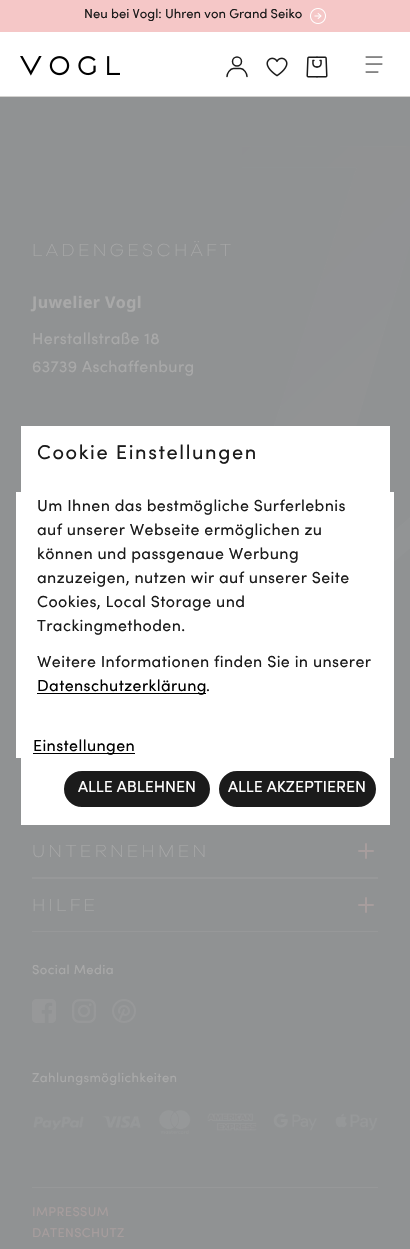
#include "include/core/SkBlurTypes.h"
#include "include/core/SkCanvas.h"
#include "include/core/SkData.h"
#include "include/core/SkFont.h"
#include "include/core/SkFontMgr.h"
#include "include/core/SkImage.h"
#include "include/core/SkMaskFilter.h"
#include "include/core/SkPaint.h"
#include "include/core/SkPathBuilder.h"
#include "include/core/SkTextBlob.h"
#include "include/effects/SkDashPathEffect.h"
#include "include/effects/SkGradientShader.h"
#include "include/utils/SkParsePath.h"

extern sk_sp<SkFontMgr> fontMgr;

void draw(SkCanvas* canvas) {
  SkPaint p;
  p.setAntiAlias(true);
  auto spacedText = [&](const char* s, float x, float y, const SkFont& font, const SkPaint& ink, float letter, float word) {
    std::vector<SkGlyphID> glyphs(font.countText(s, strlen(s), SkTextEncoding::kUTF8));
    std::vector<float> xs(glyphs.size());
    font.textToGlyphs(s, strlen(s), SkTextEncoding::kUTF8, glyphs);
    font.getXPos(glyphs, xs, x);
    float extra = 0;
    for (size_t i = 0; i < glyphs.size(); i++) {
      xs[i] += extra;
      extra += letter + word * (glyphs[i] == font.unicharToGlyph(' '));
    }
    canvas->drawTextBlob(SkTextBlob::MakeFromPosHGlyphs(glyphs, xs, y, font), 0, 0, ink);
  };
  canvas->clear(SkColorSetRGB(144, 146, 147));
  p.setColor(SK_ColorWHITE);
  canvas->drawRect(SkRect::MakeLTRB(0, 32, 410, 96), p);
  p.setColor(SkColorSetRGB(211, 210, 208));
  canvas->drawRect(SkRect::MakeLTRB(0, 96, 410, 97), p);
  p.setColor(SkColorSetRGB(245, 199, 199));
  canvas->drawRect(SkRect::MakeLTRB(0, 0, 410, 32), p);
  canvas->drawImageRect(SkImages::DeferredFromEncodedData(SkData::MakeFromFileName("images/1.png")), SkRect::MakeLTRB(310, 8, 326, 24), SkSamplingOptions());
  canvas->drawImageRect(SkImages::DeferredFromEncodedData(SkData::MakeFromFileName("images/2.png")), SkRect::MakeLTRB(20, 56, 120, 76), SkSamplingOptions());
  p.setStyle(SkPaint::kStroke_Style);
  p.setStrokeWidth(1.5f);
  p.setColor(SkColorSetRGB(27, 27, 27));
  canvas->drawCircle(237, 61.5f, 4.5f, p);
  p.setStrokeCap(SkPaint::kRound_Cap);
  p.setStrokeJoin(SkPaint::kRound_Join);
  canvas->drawPath(SkPathBuilder().moveTo(227, 76.5f).cubicTo(227, 73.5f, 230, 68.5f, 233.5f, 68.5f).lineTo(240.5f, 68.5f).cubicTo(244, 68.5f, 247, 73.5f, 247, 76.5f).detach(), p);
  canvas->drawImageRect(SkImages::DeferredFromEncodedData(SkData::MakeFromFileName("images/3.png")), SkRect::MakeLTRB(266, 57, 288, 77), SkSamplingOptions());
  canvas->drawImageRect(SkImages::DeferredFromEncodedData(SkData::MakeFromFileName("images/4.png")), SkRect::MakeLTRB(306, 56, 328, 78), SkSamplingOptions());
  canvas->drawImageRect(SkImages::DeferredFromEncodedData(SkData::MakeFromFileName("images/5.png")), SkRect::MakeLTRB(365, 56, 383, 73), SkSamplingOptions());
  canvas->drawImageRect(SkImages::DeferredFromEncodedData(SkData::MakeFromFileName("images/6.png")), SkRect::MakeLTRB(242, 146, 410, 562), SkSamplingOptions());
  p.setStyle(SkPaint::kFill_Style);
  p.setColor(SkColorSetRGB(151, 152, 153));
  canvas->drawRect(SkRect::MakeLTRB(32, 877, 378, 879), p);
  p.setStyle(SkPaint::kStroke_Style);
  p.setStrokeWidth(2);
  p.setColor(SkColorSetRGB(167, 157, 157));
  canvas->drawPath(SkPathBuilder().moveTo(373, 851).lineTo(359, 851).moveTo(366, 844).lineTo(366, 858).moveTo(373, 905).lineTo(359, 905).detach(), p);
  p.setStyle(SkPaint::kFill_Style);
  p.setColor(SkColorSetRGB(151, 152, 153));
  canvas->drawRect(SkRect::MakeLTRB(32, 931, 378, 932), p);
  p.setStyle(SkPaint::kStroke_Style);
  p.setColor(SkColorSetRGB(167, 157, 157));
  canvas->drawPath(SkPathBuilder().moveTo(366, 898).lineTo(366, 912).detach(), p);
  canvas->drawImageRect(SkImages::DeferredFromEncodedData(SkData::MakeFromFileName("images/7.png")), SkRect::MakeLTRB(32, 999, 56, 1023), SkSamplingOptions());
  canvas->drawImageRect(SkImages::DeferredFromEncodedData(SkData::MakeFromFileName("images/8.png")), SkRect::MakeLTRB(72, 999, 96, 1023), SkSamplingOptions());
  canvas->drawImageRect(SkImages::DeferredFromEncodedData(SkData::MakeFromFileName("images/9.png")), SkRect::MakeLTRB(112, 999, 136, 1023), SkSamplingOptions());
  canvas->drawImageRect(SkImages::DeferredFromEncodedData(SkData::MakeFromFileName("images/10.png")), SkRect::MakeLTRB(33, 1116, 84, 1130), SkSamplingOptions());
  canvas->drawImageRect(SkImages::DeferredFromEncodedData(SkData::MakeFromFileName("images/11.png")), SkRect::MakeLTRB(102, 1116, 141, 1128), SkSamplingOptions());
  canvas->drawImageRect(SkImages::DeferredFromEncodedData(SkData::MakeFromFileName("images/12.png")), SkRect::MakeLTRB(159, 1110, 191, 1134), SkSamplingOptions());
  canvas->drawImageRect(SkImages::DeferredFromEncodedData(SkData::MakeFromFileName("images/13.png")), SkRect::MakeLTRB(207, 1113, 257, 1131), SkSamplingOptions());
  canvas->drawImageRect(SkImages::DeferredFromEncodedData(SkData::MakeFromFileName("images/14.png")), SkRect::MakeLTRB(273, 1113, 317, 1131), SkSamplingOptions());
  canvas->drawImageRect(SkImages::DeferredFromEncodedData(SkData::MakeFromFileName("images/15.png")), SkRect::MakeLTRB(335, 1113, 378, 1131), SkSamplingOptions());
  p.setStyle(SkPaint::kFill_Style);
  p.setColor(SkColorSetRGB(151, 152, 153));
  canvas->drawRect(SkRect::MakeLTRB(32, 1187, 378, 1188), p);
  p.setColor(SK_ColorWHITE);
  canvas->drawRect(SkRect::MakeLTRB(16, 492, 394, 758), p);
  canvas->drawRect(SkRect::MakeLTRB(21, 426, 390, 825), p);
  p.setColor(SK_ColorBLACK);
  canvas->drawRect(SkRect::MakeLTRB(37, 693, 206, 694), p);
  canvas->drawRect(SkRect::MakeLTRB(33, 753, 135, 754), p);
  p.setColor(SkColorSetRGB(27, 27, 27));
  canvas->drawRoundRect(SkRect::MakeLTRB(63, 770, 211, 808), 19, 19, p);
  p.setStyle(SkPaint::kStroke_Style);
  p.setStrokeCap(SkPaint::kButt_Cap);
  p.setStrokeJoin(SkPaint::kMiter_Join);
  p.setColor(SK_ColorWHITE);
  canvas->drawRoundRect(SkRect::MakeLTRB(63, 770, 211, 808), 19, 19, p);
  p.setStyle(SkPaint::kFill_Style);
  p.setColor(SkColorSetRGB(27, 27, 27));
  canvas->drawRoundRect(SkRect::MakeLTRB(218, 770, 377, 808), 19, 19, p);
  p.setStyle(SkPaint::kStroke_Style);
  p.setColor(SK_ColorWHITE);
  canvas->drawRoundRect(SkRect::MakeLTRB(218, 770, 377, 808), 19, 19, p);
  SkFont font1(fontMgr->matchFamilyStyle("Sofia", SkFontStyle::Normal()), 13);
  font1.setSubpixel(true);
  p.setStyle(SkPaint::kFill_Style);
  p.setColor(SkColorSetRGB(27, 27, 27));
  canvas->drawString("Neu bei Vogl: Uhren von Grand Seiko", 84, 18, font1, p);
  SkFont font2(fontMgr->matchFamilyStyle("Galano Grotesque", SkFontStyle(200, SkFontStyle::kNormal_Width, SkFontStyle::kUpright_Slant)), 18);
  font2.setSubpixel(true);
  p.setColor(SkColorSetRGB(169, 169, 169));
  spacedText("LADENGESCHÄFT", 32, 256, font2, p, 3.25f, 0);
  SkFont font3(fontMgr->matchFamilyStyle("Noto Sans", SkFontStyle::Bold()), 16);
  font3.setSubpixel(true);
  spacedText("Juwelier Vogl", 32, 308, font3, p, 0.4f, 0);
  SkFont font4(fontMgr->matchFamilyStyle("Sofia", SkFontStyle::Normal()), 16);
  font4.setSubpixel(true);
  spacedText("Herstallstraße 18", 32, 344, font4, p, 0.4f, 0);
  spacedText("63739 Aschaffenburg", 32, 372, font4, p, 0.4f, 0);
  spacedText("UNTERNEHMEN", 32, 857, font2, p, 3.25f, 0);
  spacedText("HILFE", 32, 911, font2, p, 3.25f, 0);
  spacedText("Social Media", 32, 974, font1, p, 0.4f, 0);
  spacedText("Zahlungsmöglichkeiten", 32, 1082, font1, p, 0.4f, 0);
  SkFont font5(fontMgr->matchFamilyStyle("Sofia", SkFontStyle::Normal()), 12.75f);
  font5.setSubpixel(true);
  p.setColor(SkColorSetRGB(167, 157, 157));
  spacedText("IMPRESSUM", 32, 1216, font5, p, 0.4f, 0);
  spacedText("DATENSCHUTZ", 32, 1237, font5, p, 0.4f, 0);
  SkFont font6(fontMgr->matchFamilyStyle("Sofia", SkFontStyle::Normal()), 20);
  font6.setSubpixel(true);
  p.setColor(SkColorSetRGB(27, 27, 27));
  spacedText("Cookie Einstellungen", 37, 459, font6, p, 1.6f, 0);
  spacedText("Um Ihnen das bestmögliche Surferlebnis", 37, 511, font4, p, 0.4f, 0);
  spacedText("auf unserer Webseite ermöglichen zu", 37, 535, font4, p, 0.4f, 0);
  spacedText("können und passgenaue Werbung", 37, 559, font4, p, 0.4f, 0);
  spacedText("anzuzeigen, nutzen wir auf unserer Seite", 37, 583, font4, p, 0.4f, 0);
  spacedText("Cookies, Local Storage und", 37, 607, font4, p, 0.4f, 0);
  spacedText("Trackingmethoden.", 37, 631, font4, p, 0.4f, 0);
  spacedText("Weitere Informationen finden Sie in unserer", 37, 667, font4, p, 0.4f, 0);
  p.setColor(SK_ColorBLACK);
  spacedText("Datenschutzerklärung", 37, 691, font4, p, 0.4f, 0);
  p.setColor(SkColorSetRGB(27, 27, 27));
  spacedText(".", 206, 691, font4, p, 0.4f, 0);
  p.setColor(SK_ColorBLACK);
  spacedText("Einstellungen", 33, 751, font4, p, 0.4f, 0);
  p.setColor(SK_ColorWHITE);
  canvas->drawString("ALLE ABLEHNEN", 78, 792, font4, p);
  canvas->drawString("ALLE AKZEPTIEREN", 228, 792, font4, p);
}
